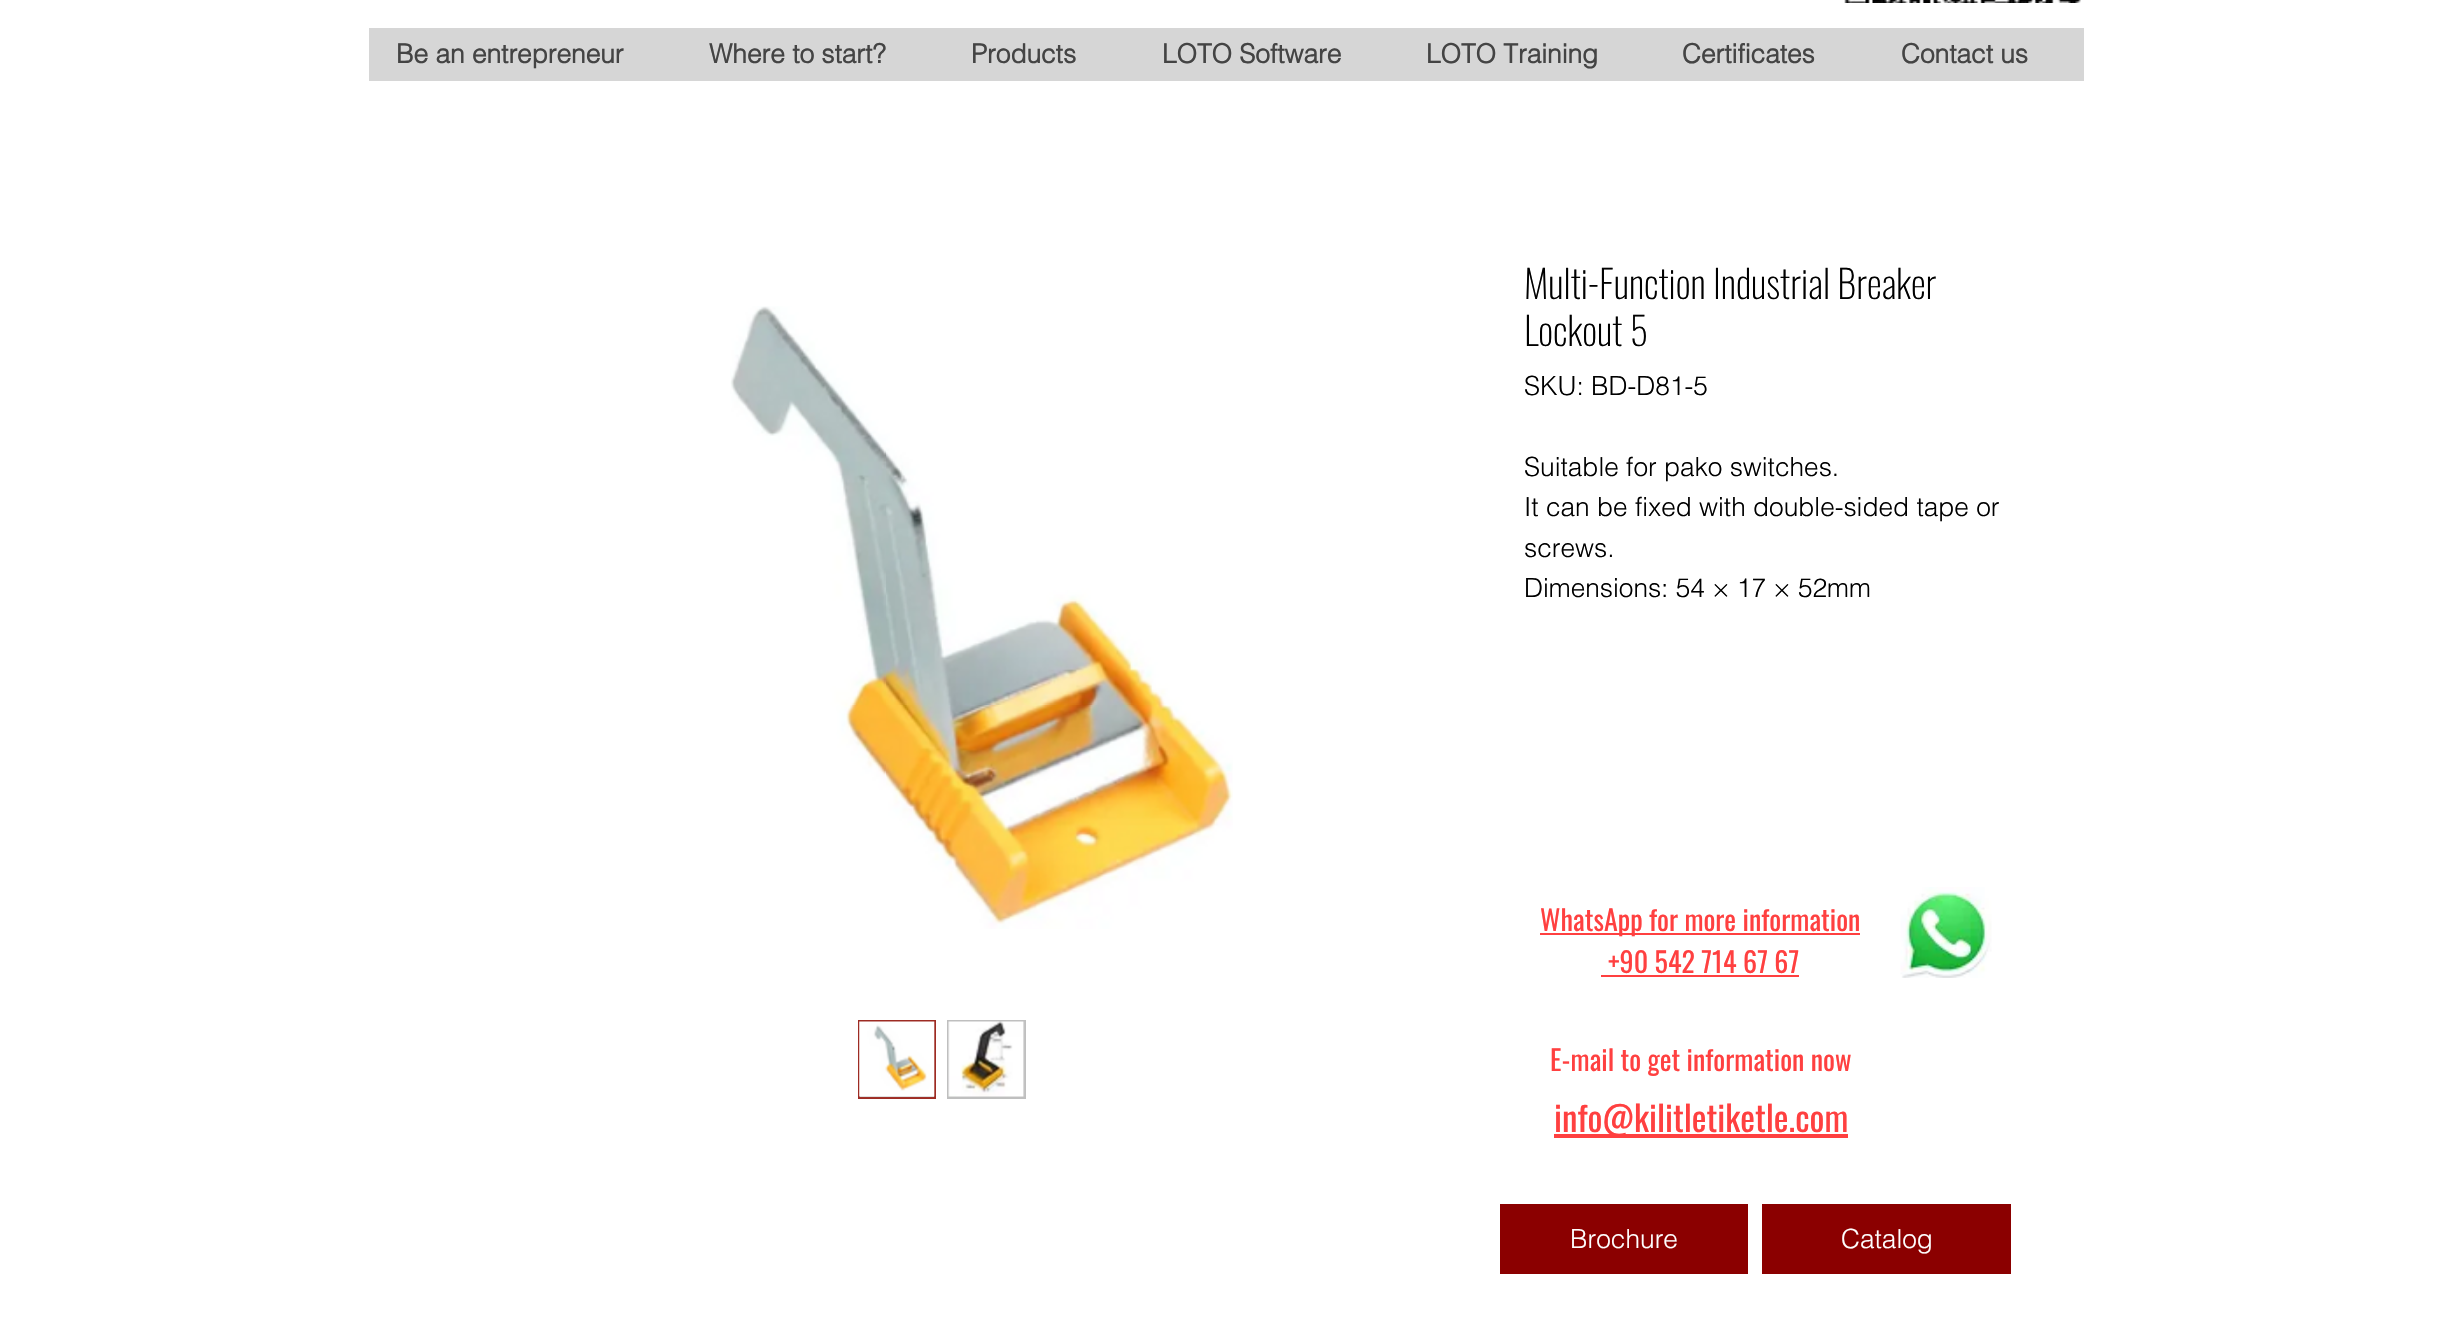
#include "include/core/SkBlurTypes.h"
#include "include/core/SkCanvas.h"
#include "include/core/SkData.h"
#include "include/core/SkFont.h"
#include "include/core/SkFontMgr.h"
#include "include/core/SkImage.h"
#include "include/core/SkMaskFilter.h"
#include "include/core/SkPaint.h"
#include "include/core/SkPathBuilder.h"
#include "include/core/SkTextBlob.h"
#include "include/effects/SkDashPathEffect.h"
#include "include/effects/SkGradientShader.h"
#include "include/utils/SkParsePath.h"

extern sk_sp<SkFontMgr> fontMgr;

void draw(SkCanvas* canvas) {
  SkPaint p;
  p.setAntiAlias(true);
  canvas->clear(SK_ColorWHITE);
  canvas->drawImageRect(SkImages::DeferredFromEncodedData(SkData::MakeFromFileName("images/1.png")), SkRect::MakeLTRB(1844, 0, 2081, 3), SkSamplingOptions());
  p.setColor(SkColorSetRGB(214, 214, 214));
  canvas->drawRect(SkRect::MakeLTRB(369, 28, 2084, 81), p);
  canvas->drawImageRect(SkImages::DeferredFromEncodedData(SkData::MakeFromFileName("images/2.png")), SkRect::MakeLTRB(730, 306, 1233, 929), SkSamplingOptions());
  p.setColor(SkColorSetRGB(191, 191, 191));
  canvas->drawRect(SkRect::MakeLTRB(860, 1096, 934, 1097), p);
  p.setStyle(SkPaint::kStroke_Style);
  p.setStrokeWidth(2);
  p.setColor(SkColorSetRGB(157, 43, 35));
  canvas->drawRect(SkRect::MakeLTRB(859, 1021, 935, 1098), p);
  canvas->drawImageRect(SkImages::DeferredFromEncodedData(SkData::MakeFromFileName("images/3.png")), SkRect::MakeLTRB(859, 1021, 935, 1098), SkSamplingOptions());
  p.setStyle(SkPaint::kFill_Style);
  p.setColor(SkColorSetRGB(191, 191, 191));
  canvas->drawRect(SkRect::MakeLTRB(947, 1020, 1026, 1099), p);
  canvas->drawImageRect(SkImages::DeferredFromEncodedData(SkData::MakeFromFileName("images/4.png")), SkRect::MakeLTRB(948, 1021, 1025, 1097), SkSamplingOptions());
  p.setColor(SkColorSetRGB(255, 64, 64));
  canvas->drawRect(SkRect::MakeLTRB(1540, 933, 1860, 935), p);
  canvas->drawRect(SkRect::MakeLTRB(1601, 975, 1799, 977), p);
  canvas->drawImageRect(SkImages::DeferredFromEncodedData(SkData::MakeFromFileName("images/5.png")), SkRect::MakeLTRB(1900, 887, 1992, 978), SkSamplingOptions());
  canvas->drawRect(SkRect::MakeLTRB(1554, 1134, 1848, 1138), p);
  p.setColor(SkColorSetRGB(139, 0, 0));
  canvas->drawRect(SkRect::MakeLTRB(1500, 1204, 1748, 1274), p);
  canvas->drawRect(SkRect::MakeLTRB(1762, 1204, 2011, 1274), p);
  SkFont font1(fontMgr->matchFamilyStyle("helvetica", SkFontStyle::Bold()), 26.25f);
  font1.setSubpixel(true);
  p.setColor(SkColorSetRGB(68, 68, 68));
  canvas->drawString("Be an entrepreneur", 396, 63, font1, p);
  canvas->drawString("Where to start?", 709, 63, font1, p);
  canvas->drawString("Products", 971, 63, font1, p);
  canvas->drawString("LOTO Software", 1162, 63, font1, p);
  canvas->drawString("LOTO Training", 1426, 63, font1, p);
  canvas->drawString("Certificates", 1682, 63, font1, p);
  canvas->drawString("Contact us", 1901, 63, font1, p);
  SkFont font2(fontMgr->matchFamilyStyle("Oswald", SkFontStyle(200, SkFontStyle::kNormal_Width, SkFontStyle::kUpright_Slant)), 38.5f);
  font2.setSubpixel(true);
  p.setColor(SK_ColorBLACK);
  canvas->drawString("Multi-Function Industrial Breaker", 1524, 299, font2, p);
  canvas->drawString("Lockout 5", 1524, 346, font2, p);
  SkFont font3(fontMgr->matchFamilyStyle("helvetica", SkFontStyle(300, SkFontStyle::kNormal_Width, SkFontStyle::kUpright_Slant)), 26.25f);
  font3.setSubpixel(true);
  canvas->drawString("SKU: BD-D81-5", 1524, 395, font3, p);
  canvas->drawString("Suitable for pako switches.", 1524, 476, font3, p);
  canvas->drawString("It can be fixed with double-sided tape or", 1524, 516, font3, p);
  canvas->drawString("screws.", 1524, 557, font3, p);
  canvas->drawString("Dimensions: 54 × 17 × 52mm", 1524, 597, font3, p);
  SkFont font4(fontMgr->matchFamilyStyle("Oswald", SkFontStyle::Normal()), 28);
  font4.setSubpixel(true);
  p.setColor(SkColorSetRGB(255, 64, 64));
  canvas->drawString("WhatsApp for more information", 1540, 931, font4, p);
  canvas->drawString("+90 542 714 67 67", 1608, 973, font4, p);
  canvas->drawString("E-mail to get information now", 1550, 1071, font4, p);
  SkFont font5(fontMgr->matchFamilyStyle("Oswald", SkFontStyle::Normal()), 35);
  font5.setSubpixel(true);
  canvas->drawString("info@kilitletiketle.com", 1554, 1132, font5, p);
  p.setColor(SK_ColorWHITE);
  canvas->drawString("Brochure", 1570, 1248, font3, p);
  canvas->drawString("Catalog", 1841, 1248, font3, p);
}
